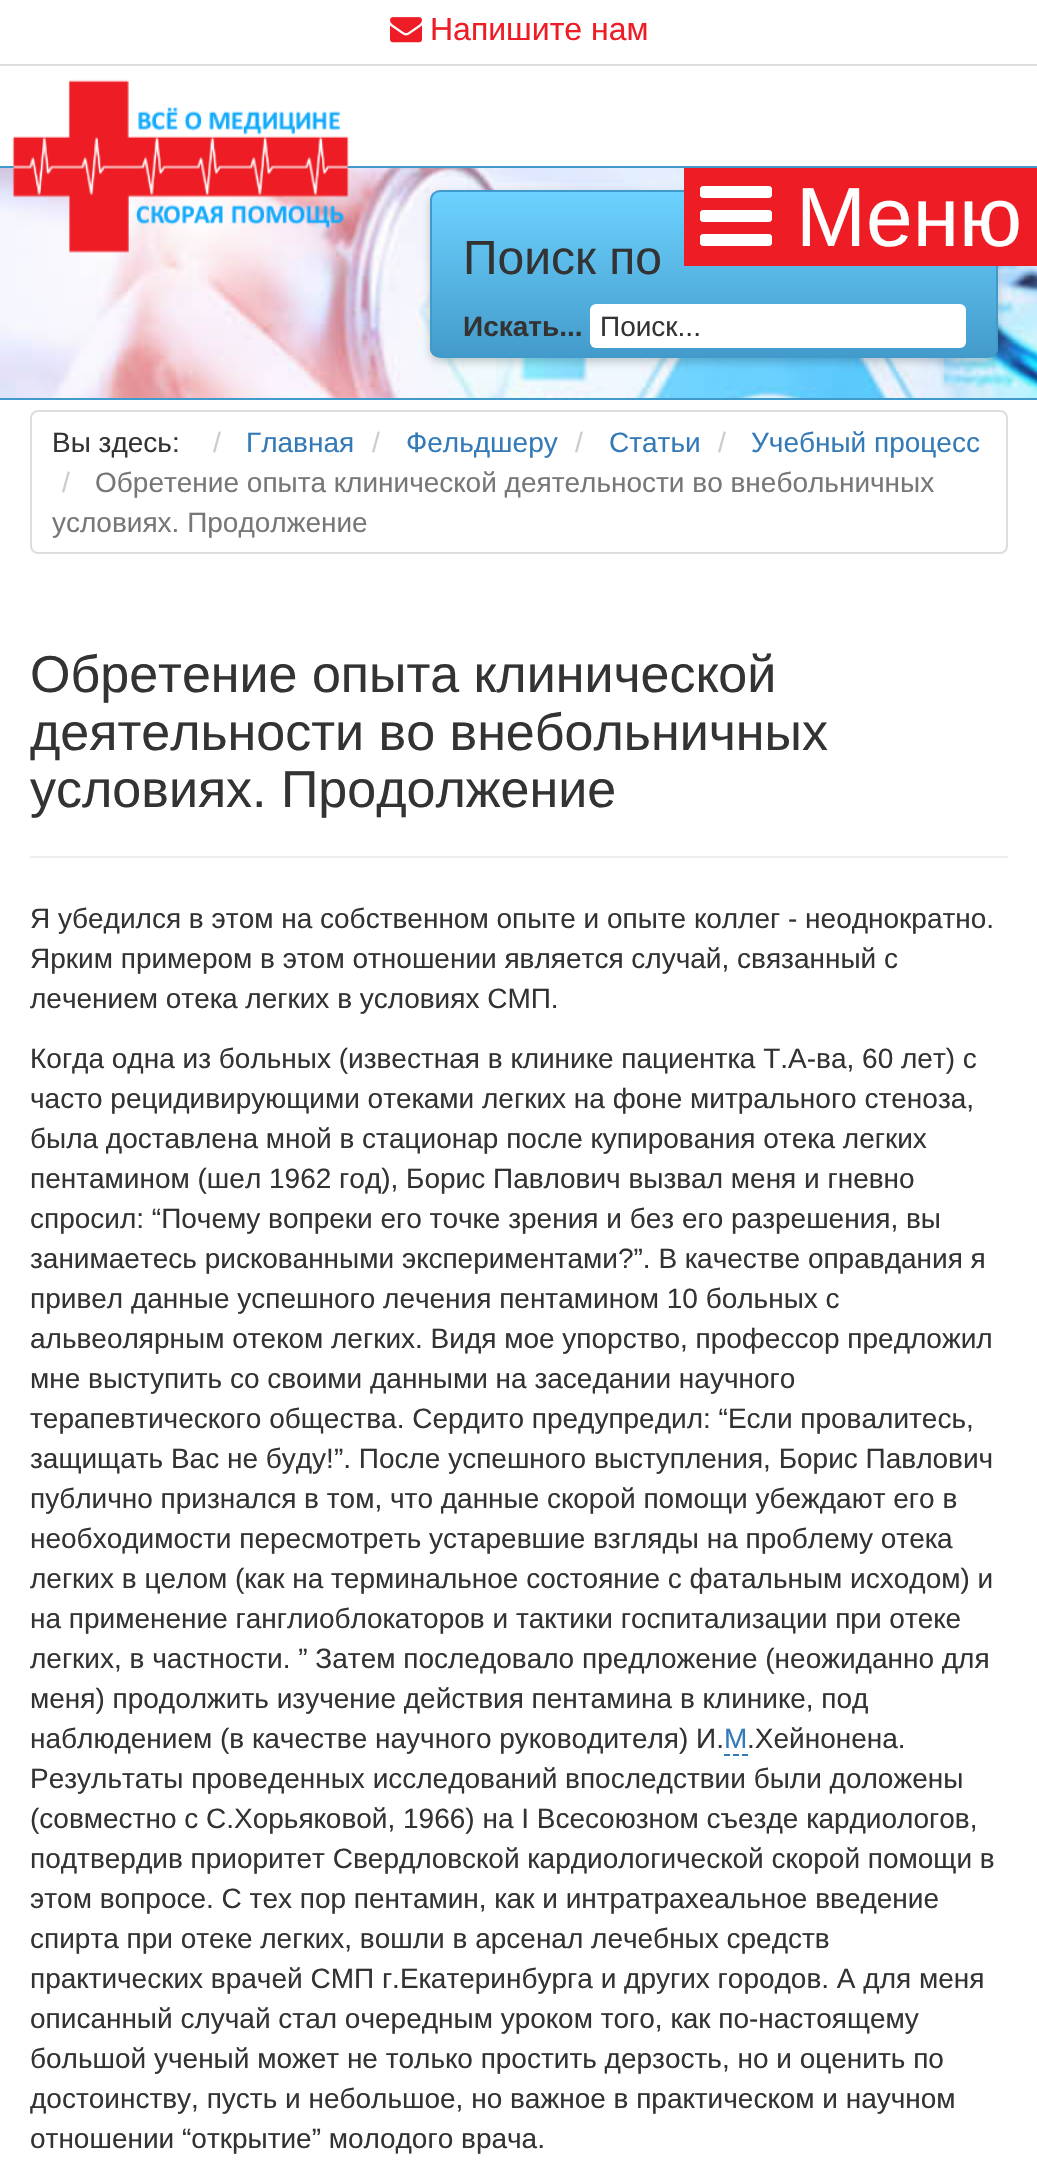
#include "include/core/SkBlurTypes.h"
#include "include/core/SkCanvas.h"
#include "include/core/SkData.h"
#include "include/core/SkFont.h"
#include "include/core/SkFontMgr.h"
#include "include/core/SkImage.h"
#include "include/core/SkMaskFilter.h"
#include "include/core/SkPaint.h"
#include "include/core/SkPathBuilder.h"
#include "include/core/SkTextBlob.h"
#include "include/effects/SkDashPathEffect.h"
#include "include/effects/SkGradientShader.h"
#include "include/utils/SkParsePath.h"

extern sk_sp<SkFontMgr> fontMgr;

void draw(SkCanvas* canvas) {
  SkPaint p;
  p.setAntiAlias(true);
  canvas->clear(SK_ColorWHITE);
  p.setColor(SkColorSetRGB(222, 222, 222));
  canvas->drawRect(SkRect::MakeLTRB(0, 64, 1037, 66), p);
  canvas->drawImageRect(SkImages::DeferredFromEncodedData(SkData::MakeFromFileName("images/1.png")), SkRect::MakeLTRB(390, 17, 422, 43), SkSamplingOptions());
  p.setColor(SkColorSetRGB(64, 154, 204));
  canvas->drawRect(SkRect::MakeLTRB(0, 166, 1037, 168), p);
  canvas->drawImageRect(SkImages::DeferredFromEncodedData(SkData::MakeFromFileName("images/4.png")), SkRect::MakeLTRB(0, 168, 1037, 398), SkSamplingOptions());
  canvas->drawImageRect(SkImages::DeferredFromEncodedData(SkData::MakeFromFileName("images/2.png")), SkRect::MakeLTRB(12, 79, 349, 253), SkSamplingOptions());
  p.setColor(SkColorSetARGB(51, 0, 0, 0));
  p.setMaskFilter(SkMaskFilter::MakeBlur(kNormal_SkBlurStyle, 4));
  canvas->drawRoundRect(SkRect::MakeLTRB(430, 194, 998, 362), 10, 10, p);
  p.setMaskFilter(nullptr);
  canvas->save();
  canvas->clipPath(SkPathBuilder().moveTo(440, 190).lineTo(988, 190).cubicTo(993.5f, 190, 998, 194.5f, 998, 200).lineTo(998, 348).cubicTo(998, 353.5f, 993.5f, 358, 988, 358).lineTo(440, 358).cubicTo(434.5f, 358, 430, 353.5f, 430, 348).lineTo(430, 200).cubicTo(430, 194.5f, 434.5f, 190, 440, 190).close().detach(), true);
  {
    const SkColor colors[] = {SkColorSetRGB(109, 210, 255), SkColorSetRGB(67, 155, 203)};
    const float stops[] = {0, 1};
    const SkPoint ends[] = {{714, 192}, {714, 356}};
    p.setShader(SkGradientShader::MakeLinear(ends, colors, stops, 2, SkTileMode::kClamp));
    p.setAlpha(255);
  }
  canvas->drawRect(SkRect::MakeLTRB(430, 192, 998, 356), p);
  canvas->restore();
  p.setStyle(SkPaint::kStroke_Style);
  p.setStrokeWidth(2);
  p.setShader(nullptr);
  p.setColor(SkColorSetRGB(64, 154, 204));
  canvas->drawRoundRect(SkRect::MakeLTRB(431, 191, 997, 357), 9, 9, p);
  p.setStyle(SkPaint::kFill_Style);
  p.setColor(SkColorSetRGB(238, 28, 36));
  canvas->drawRect(SkRect::MakeLTRB(684, 168, 1037, 266), p);
  canvas->drawImageRect(SkImages::DeferredFromEncodedData(SkData::MakeFromFileName("images/3.png")), SkRect::MakeLTRB(700, 186, 772, 246), SkSamplingOptions());
  p.setColor(SkColorSetRGB(64, 154, 204));
  canvas->drawRect(SkRect::MakeLTRB(0, 398, 1037, 400), p);
  p.setColor(SK_ColorWHITE);
  canvas->drawRoundRect(SkRect::MakeLTRB(590, 304, 966, 348), 6, 6, p);
  p.setStyle(SkPaint::kStroke_Style);
  p.setColor(SkColorSetRGB(221, 221, 221));
  canvas->drawRoundRect(SkRect::MakeLTRB(31, 411, 1007, 553), 7, 7, p);
  p.setStyle(SkPaint::kFill_Style);
  p.setColor(SkColorSetRGB(238, 238, 238));
  canvas->drawRect(SkRect::MakeLTRB(30, 856, 1008, 858), p);
  p.setStyle(SkPaint::kStroke_Style);
  p.setColor(SkColorSetRGB(51, 122, 183));
  canvas->drawPath(SkPathBuilder().moveTo(724, 1755).lineTo(730, 1755).moveTo(733, 1755).lineTo(739, 1755).moveTo(742, 1755).lineTo(748, 1755).detach(), p);
  SkFont font1(fontMgr->matchFamilyStyle("Liberation Sans", SkFontStyle::Normal()), 32);
  font1.setSubpixel(true);
  p.setStyle(SkPaint::kFill_Style);
  p.setColor(SkColorSetRGB(238, 28, 36));
  canvas->drawString("Напишите нам", 430, 40, font1, p);
  SkFont font2(fontMgr->matchFamilyStyle("Liberation Sans", SkFontStyle::Normal()), 84);
  font2.setSubpixel(true);
  p.setColor(SK_ColorWHITE);
  canvas->drawString("Меню", 796, 246, font2, p);
  SkFont font3(fontMgr->matchFamilyStyle("Liberation Sans", SkFontStyle::Normal()), 48);
  font3.setSubpixel(true);
  p.setColor(SkColorSetRGB(51, 51, 51));
  canvas->drawString("Поиск по", 463, 274, font3, p);
  SkFont font4(fontMgr->matchFamilyStyle("Liberation Sans", SkFontStyle::Bold()), 28);
  font4.setSubpixel(true);
  canvas->drawString("Искать...", 463, 336, font4, p);
  SkFont font5(fontMgr->matchFamilyStyle("Liberation Sans", SkFontStyle::Normal()), 28);
  font5.setSubpixel(true);
  canvas->drawString("Поиск...", 600, 336, font5, p);
  canvas->drawString("Вы здесь:", 52, 452, font5, p);
  p.setColor(SkColorSetRGB(204, 204, 204));
  canvas->drawString("/", 213, 452, font5, p);
  p.setColor(SkColorSetRGB(51, 122, 183));
  canvas->drawString("Главная", 246, 452, font5, p);
  p.setColor(SkColorSetRGB(204, 204, 204));
  canvas->drawString("/", 372, 452, font5, p);
  p.setColor(SkColorSetRGB(51, 122, 183));
  canvas->drawString("Фельдшеру", 406, 452, font5, p);
  p.setColor(SkColorSetRGB(204, 204, 204));
  canvas->drawString("/", 575, 452, font5, p);
  p.setColor(SkColorSetRGB(51, 122, 183));
  canvas->drawString("Статьи", 609, 452, font5, p);
  p.setColor(SkColorSetRGB(204, 204, 204));
  canvas->drawString("/", 718, 452, font5, p);
  p.setColor(SkColorSetRGB(51, 122, 183));
  canvas->drawString("Учебный процесс", 751, 452, font5, p);
  p.setColor(SkColorSetRGB(204, 204, 204));
  canvas->drawString("/", 62, 492, font5, p);
  p.setColor(SkColorSetRGB(119, 119, 119));
  canvas->drawString("Обретение опыта клинической деятельности во внебольничных", 95, 492, font5, p);
  canvas->drawString("условиях. Продолжение", 52, 532, font5, p);
  SkFont font6(fontMgr->matchFamilyStyle("Liberation Sans", SkFontStyle::Normal()), 52);
  font6.setSubpixel(true);
  p.setColor(SkColorSetRGB(51, 51, 51));
  canvas->drawString("Обретение опыта клинической", 30, 692, font6, p);
  canvas->drawString("деятельности во внебольничных", 30, 750, font6, p);
  canvas->drawString("условиях. Продолжение", 30, 807, font6, p);
  canvas->drawString("Я убедился в этом на собственном опыте и опыте коллег - неоднократно.", 30, 928, font5, p);
  canvas->drawString("Ярким примером в этом отношении является случай, связанный с", 30, 968, font5, p);
  canvas->drawString("лечением отека легких в условиях СМП.", 30, 1008, font5, p);
  canvas->drawString("Когда одна из больных (известная в клинике пациентка Т.А-ва, 60 лет) с", 30, 1068, font5, p);
  canvas->drawString("часто рецидивирующими отеками легких на фоне митрального стеноза,", 30, 1108, font5, p);
  canvas->drawString("была доставлена мной в стационар после купирования отека легких", 30, 1148, font5, p);
  canvas->drawString("пентамином (шел 1962 год), Борис Павлович вызвал меня и гневно", 30, 1188, font5, p);
  canvas->drawString("спросил: “Почему вопреки его точке зрения и без его разрешения, вы", 30, 1228, font5, p);
  canvas->drawString("занимаетесь рискованными экспериментами?”. В качестве оправдания я", 30, 1268, font5, p);
  canvas->drawString("привел данные успешного лечения пентамином 10 больных с", 30, 1308, font5, p);
  canvas->drawString("альвеолярным отеком легких. Видя мое упорство, профессор предложил", 30, 1348, font5, p);
  canvas->drawString("мне выступить со своими данными на заседании научного", 30, 1388, font5, p);
  canvas->drawString("терапевтического общества. Сердито предупредил: “Если провалитесь,", 30, 1428, font5, p);
  canvas->drawString("защищать Вас не буду!”. После успешного выступления, Борис Павлович", 30, 1468, font5, p);
  canvas->drawString("публично признался в том, что данные скорой помощи убеждают его в", 30, 1508, font5, p);
  canvas->drawString("необходимости пересмотреть устаревшие взгляды на проблему отека", 30, 1548, font5, p);
  canvas->drawString("легких в целом (как на терминальное состояние с фатальным исходом) и", 30, 1588, font5, p);
  canvas->drawString("на применение ганглиоблокаторов и тактики госпитализации при отеке", 30, 1628, font5, p);
  canvas->drawString("легких, в частности. ” Затем последовало предложение (неожиданно для", 30, 1668, font5, p);
  canvas->drawString("меня) продолжить изучение действия пентамина в клинике, под", 30, 1708, font5, p);
  canvas->drawString("наблюдением (в качестве научного руководителя) И.", 30, 1748, font5, p);
  p.setColor(SkColorSetRGB(51, 122, 183));
  canvas->drawString("М", 724, 1748, font5, p);
  p.setColor(SkColorSetRGB(51, 51, 51));
  canvas->drawString(".Хейнонена.", 747, 1748, font5, p);
  canvas->drawString("Результаты проведенных исследований впоследствии были доложены", 30, 1788, font5, p);
  canvas->drawString("(совместно с С.Хорьяковой, 1966) на I Всесоюзном съезде кардиологов,", 30, 1828, font5, p);
  canvas->drawString("подтвердив приоритет Свердловской кардиологической скорой помощи в", 30, 1868, font5, p);
  canvas->drawString("этом вопросе. С тех пор пентамин, как и интратрахеальное введение", 30, 1908, font5, p);
  canvas->drawString("спирта при отеке легких, вошли в арсенал лечебных средств", 30, 1948, font5, p);
  canvas->drawString("практических врачей СМП г.Екатеринбурга и других городов. А для меня", 30, 1988, font5, p);
  canvas->drawString("описанный случай стал очередным уроком того, как по-настоящему", 30, 2028, font5, p);
  canvas->drawString("большой ученый может не только простить дерзость, но и оценить по", 30, 2068, font5, p);
  canvas->drawString("достоинству, пусть и небольшое, но важное в практическом и научном", 30, 2108, font5, p);
  canvas->drawString("отношении “открытие” молодого врача.", 30, 2148, font5, p);
}
